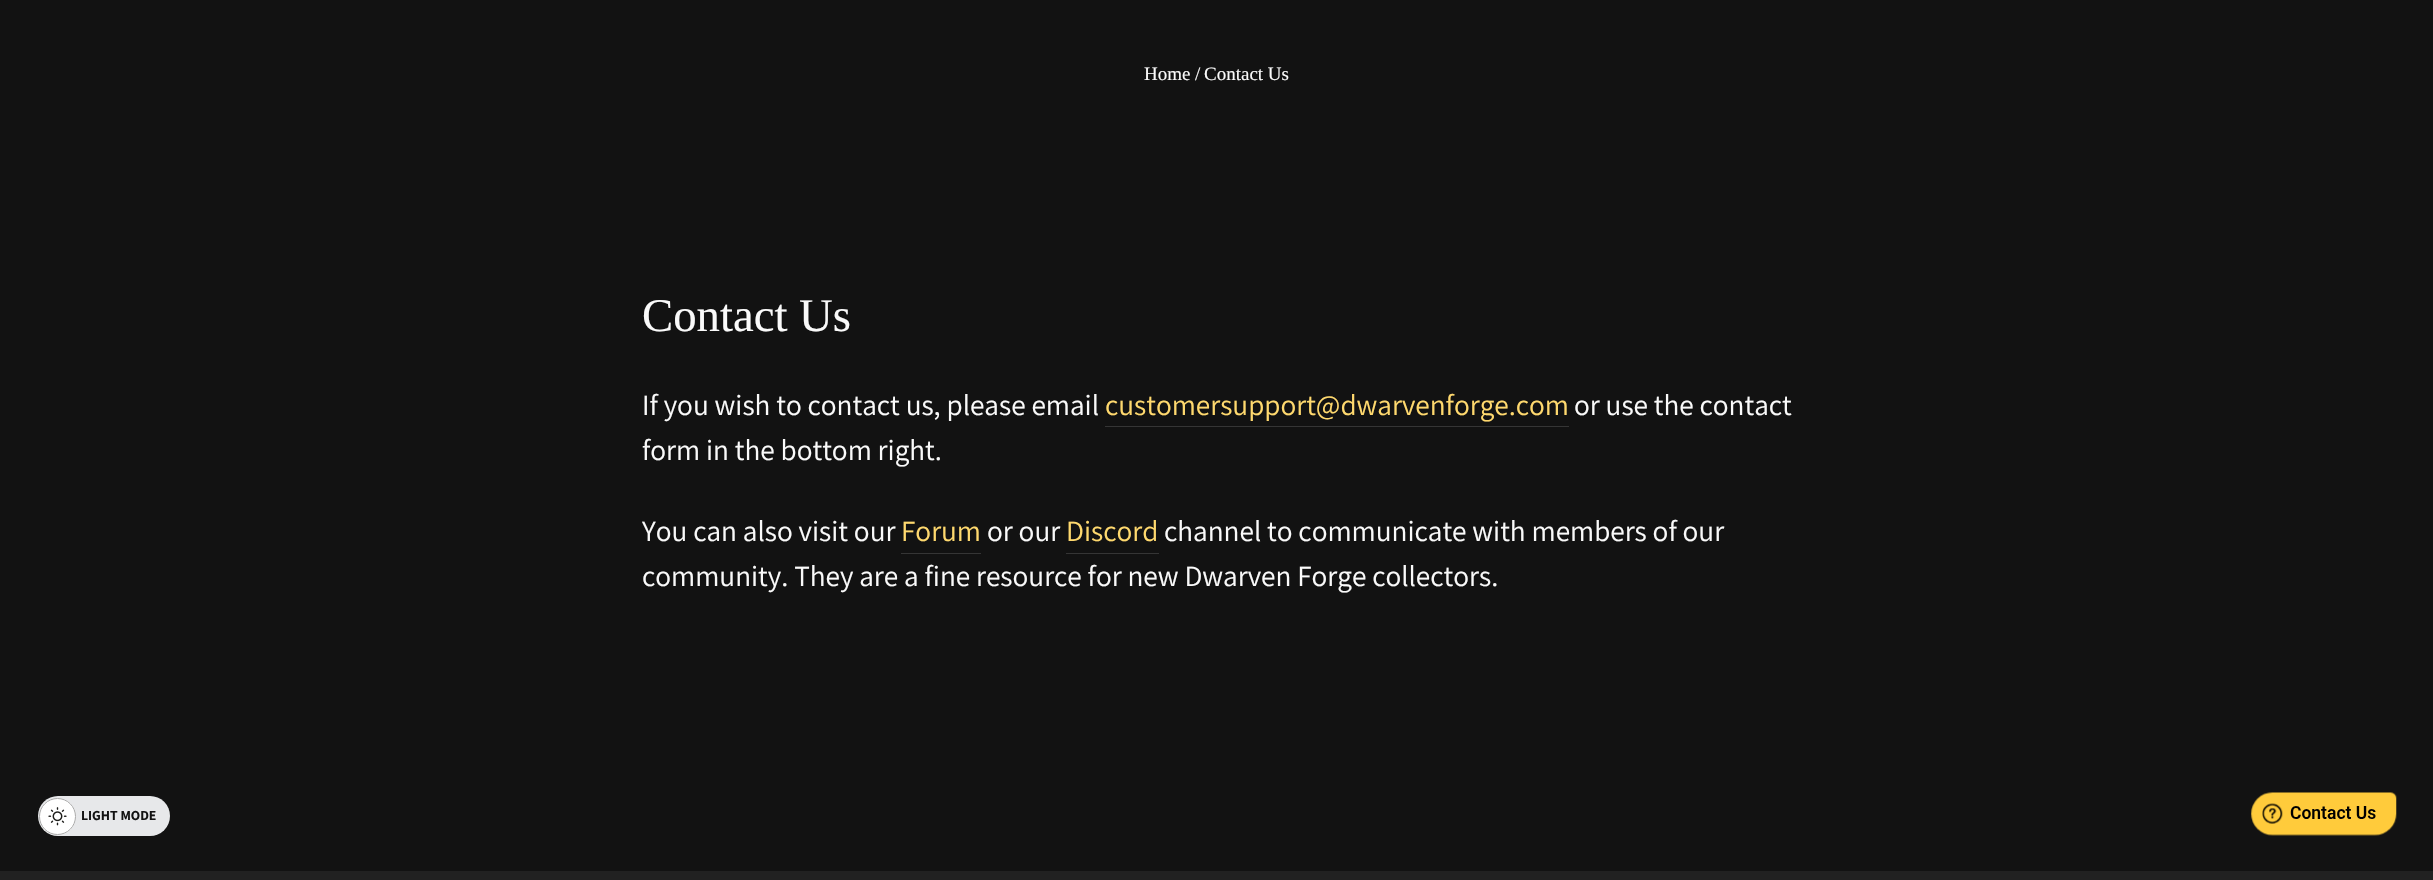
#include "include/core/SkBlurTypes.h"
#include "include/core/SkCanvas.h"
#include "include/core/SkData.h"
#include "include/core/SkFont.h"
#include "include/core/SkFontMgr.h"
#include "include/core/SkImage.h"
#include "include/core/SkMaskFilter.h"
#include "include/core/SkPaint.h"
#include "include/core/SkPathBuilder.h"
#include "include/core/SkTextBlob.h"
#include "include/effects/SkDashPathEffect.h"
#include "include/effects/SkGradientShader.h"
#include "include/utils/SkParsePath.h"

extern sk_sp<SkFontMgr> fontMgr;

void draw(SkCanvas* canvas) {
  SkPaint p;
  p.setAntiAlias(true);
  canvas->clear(SkColorSetRGB(18, 18, 18));
  p.setColor(SkColorSetRGB(53, 53, 53));
  canvas->drawRect(SkRect::MakeLTRB(1105, 426, 1569, 427), p);
  canvas->drawRect(SkRect::MakeLTRB(901, 553, 981, 554), p);
  canvas->drawRect(SkRect::MakeLTRB(1066, 553, 1159, 554), p);
  p.setColor(SkColorSetRGB(33, 33, 33));
  canvas->drawRect(SkRect::MakeLTRB(0, 871, 2433, 880), p);
  p.setColor(SkColorSetRGB(231, 232, 234));
  canvas->drawRoundRect(SkRect::MakeLTRB(38, 796, 170, 836), 20, 20, p);
  p.setColor(SK_ColorWHITE);
  canvas->drawCircle(57.5f, 816.5f, 18.5f, p);
  canvas->drawImageRect(SkImages::DeferredFromEncodedData(SkData::MakeFromFileName("images/1.png")), SkRect::MakeLTRB(48, 807, 67, 826), SkSamplingOptions());
  p.setStyle(SkPaint::kStroke_Style);
  p.setStrokeWidth(1);
  p.setColor(SkColorSetRGB(169, 169, 169));
  canvas->drawCircle(57.5f, 816.5f, 18, p);
  canvas->drawImageRect(SkImages::DeferredFromEncodedData(SkData::MakeFromFileName("images/2.png")), SkRect::MakeLTRB(2251, 792, 2397, 836), SkSamplingOptions());
  SkFont font1(fontMgr->matchFamilyStyle("Liberation Serif", SkFontStyle::Normal()), 19);
  font1.setSubpixel(true);
  p.setStyle(SkPaint::kFill_Style);
  p.setColor(SkColorSetRGB(250, 250, 250));
  canvas->drawString("Home", 1144, 80, font1, p);
  canvas->drawString("/", 1195, 80, font1, p);
  canvas->drawString("Contact Us", 1204, 80, font1, p);
  SkFont font2(fontMgr->matchFamilyStyle("Liberation Serif", SkFontStyle::Normal()), 46.75f);
  font2.setSubpixel(true);
  canvas->drawString("Contact Us", 642, 331, font2, p);
  SkFont font3(fontMgr->matchFamilyStyle("Assistant", SkFontStyle::Normal()), 29.25f);
  font3.setSubpixel(true);
  canvas->drawString("If you wish to contact us, please email", 642, 415, font3, p);
  p.setColor(SkColorSetRGB(255, 217, 110));
  canvas->drawString("customersupport@dwarvenforge.com", 1105, 415, font3, p);
  p.setColor(SkColorSetRGB(250, 250, 250));
  canvas->drawString("or use the contact", 1574, 415, font3, p);
  canvas->drawString("form in the bottom right.", 642, 460, font3, p);
  canvas->drawString("You can also visit our", 642, 541, font3, p);
  p.setColor(SkColorSetRGB(255, 217, 110));
  canvas->drawString("Forum", 901, 541, font3, p);
  p.setColor(SkColorSetRGB(250, 250, 250));
  canvas->drawString("or our", 987, 541, font3, p);
  p.setColor(SkColorSetRGB(255, 217, 110));
  canvas->drawString("Discord", 1066, 541, font3, p);
  p.setColor(SkColorSetRGB(250, 250, 250));
  canvas->drawString("channel to communicate with members of our", 1164, 541, font3, p);
  canvas->drawString("community. They are a fine resource for new Dwarven Forge collectors.", 642, 586, font3, p);
  SkFont font4(fontMgr->matchFamilyStyle("Assistant", SkFontStyle::Bold()), 13.75f);
  font4.setSubpixel(true);
  p.setColor(SkColorSetRGB(18, 18, 18));
  canvas->drawString("LIGHT MODE", 81, 820, font4, p);
}
